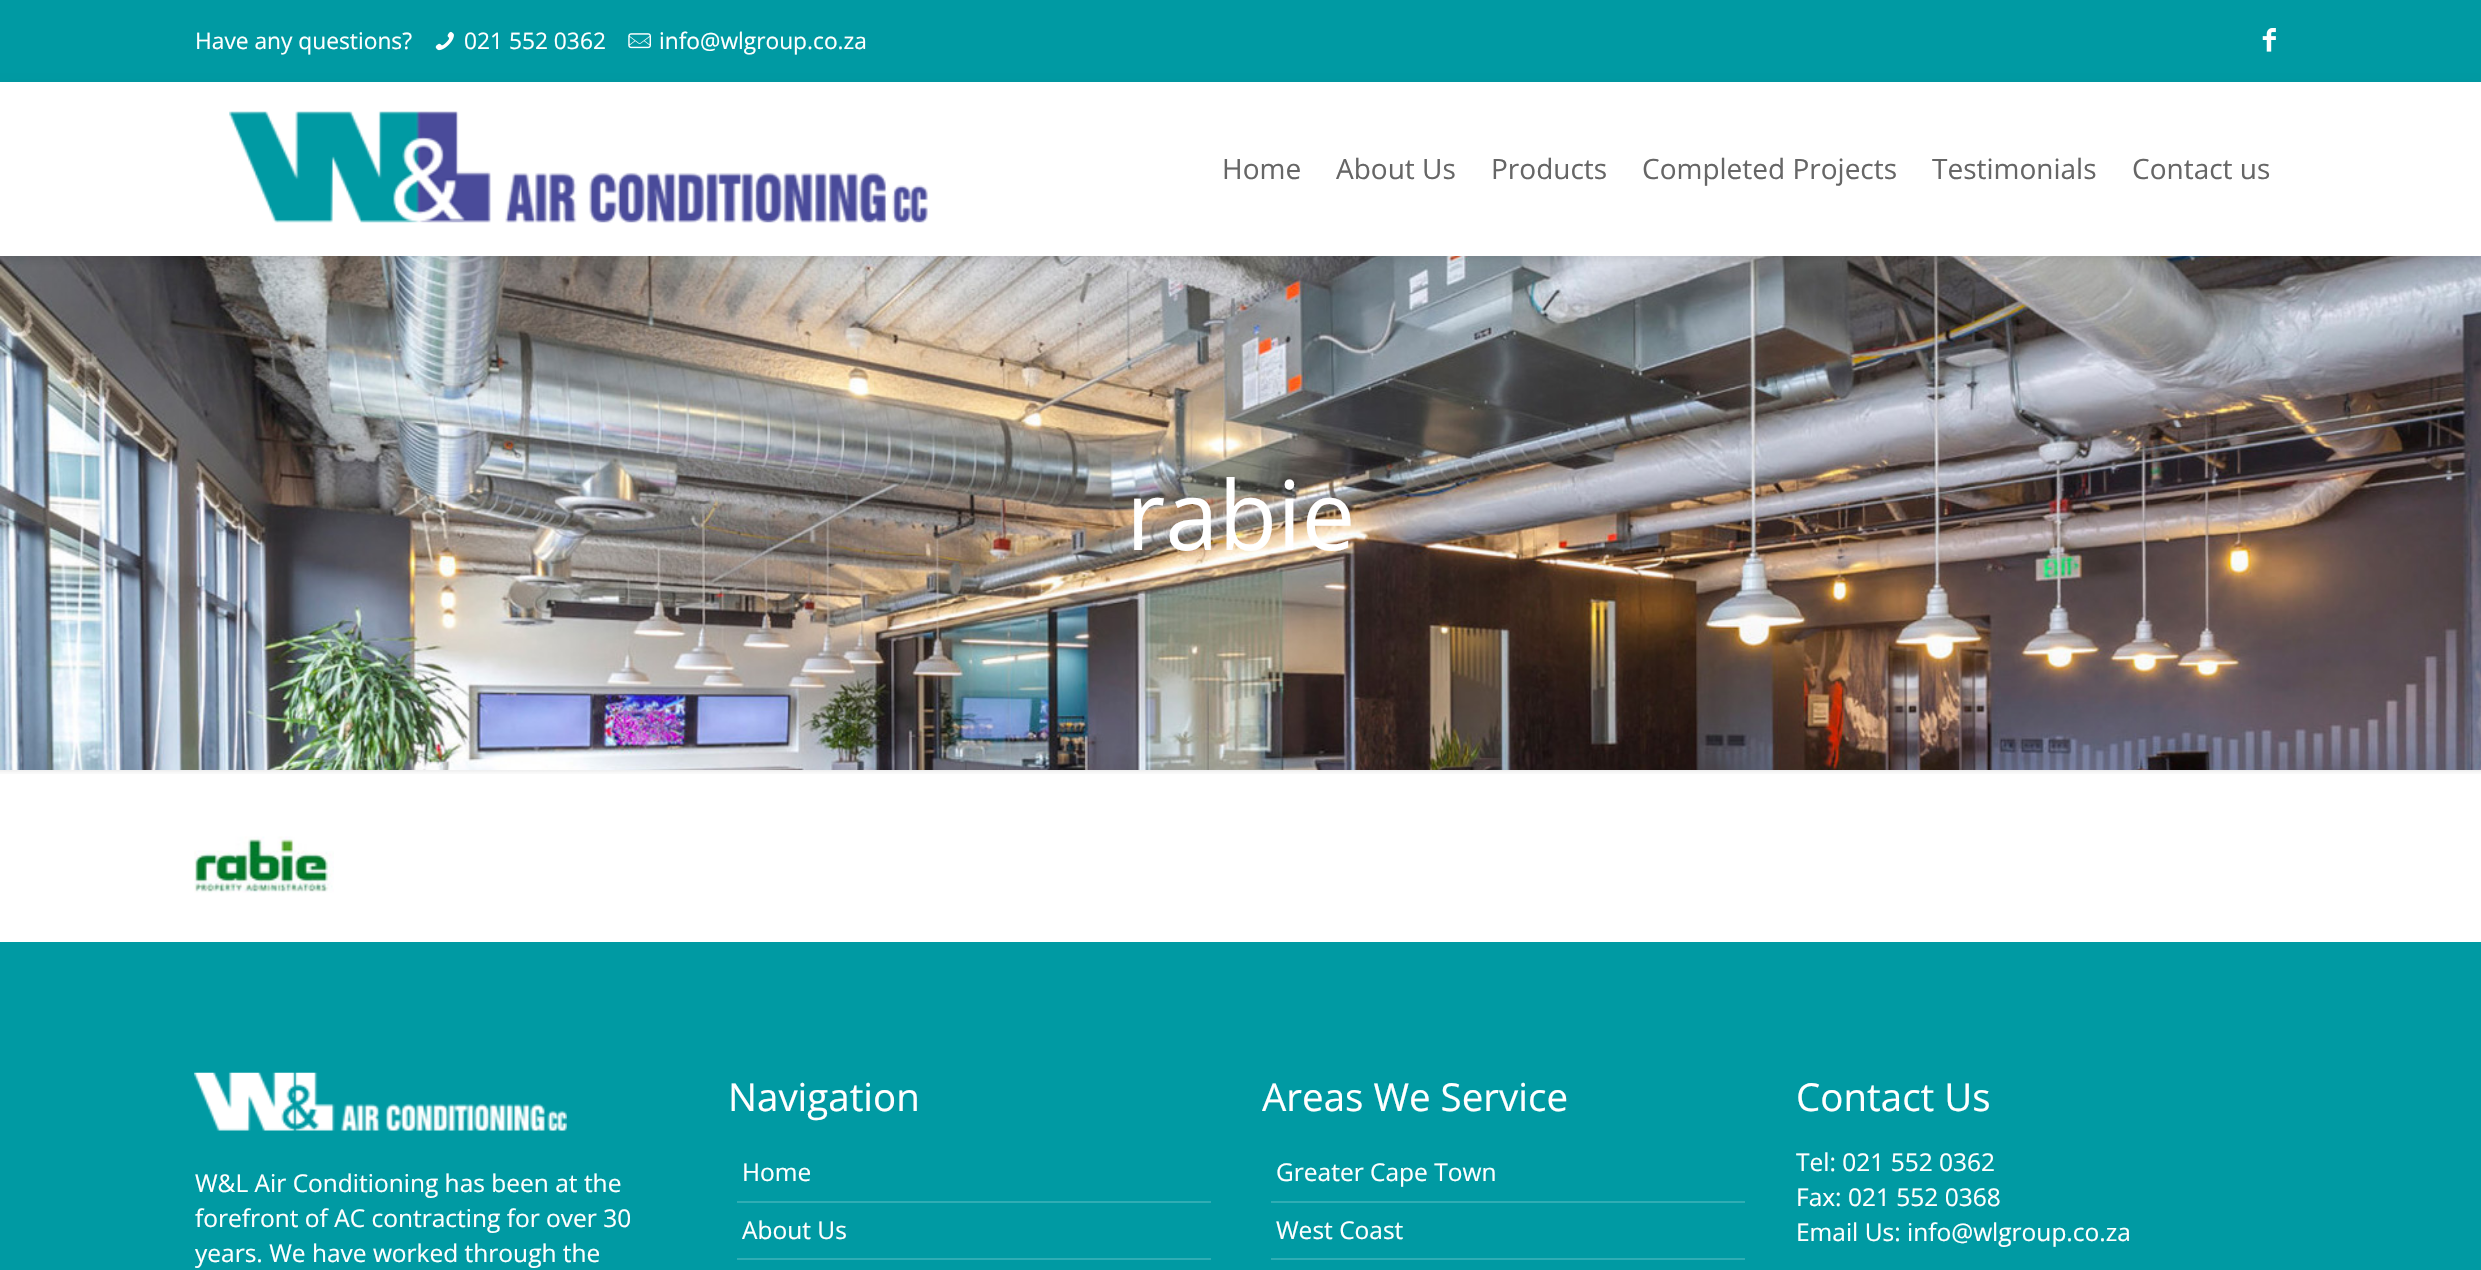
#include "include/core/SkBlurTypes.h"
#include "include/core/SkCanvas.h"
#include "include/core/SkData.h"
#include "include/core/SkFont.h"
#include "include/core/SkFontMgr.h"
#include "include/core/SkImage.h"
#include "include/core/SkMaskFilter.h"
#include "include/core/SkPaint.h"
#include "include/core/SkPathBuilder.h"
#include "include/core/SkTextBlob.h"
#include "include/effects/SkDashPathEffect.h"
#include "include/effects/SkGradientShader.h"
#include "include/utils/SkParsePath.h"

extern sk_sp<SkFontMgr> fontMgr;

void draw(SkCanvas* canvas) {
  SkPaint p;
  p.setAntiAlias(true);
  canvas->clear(SK_ColorWHITE);
  canvas->drawImageRect(SkImages::DeferredFromEncodedData(SkData::MakeFromFileName("images/1.png")), SkRect::MakeLTRB(0, 256, 2481, 770), SkSamplingOptions());
  p.setColor(SkColorSetRGB(0, 154, 163));
  canvas->drawRect(SkRect::MakeLTRB(0, 0, 2481, 82), p);
  canvas->drawImageRect(SkImages::DeferredFromEncodedData(SkData::MakeFromFileName("images/2.png")), SkRect::MakeLTRB(435, 31, 454, 51), SkSamplingOptions());
  canvas->drawImageRect(SkImages::DeferredFromEncodedData(SkData::MakeFromFileName("images/3.png")), SkRect::MakeLTRB(628, 33, 651, 49), SkSamplingOptions());
  canvas->drawImageRect(SkImages::DeferredFromEncodedData(SkData::MakeFromFileName("images/4.png")), SkRect::MakeLTRB(2262, 28, 2276, 52), SkSamplingOptions());
  p.setColor(SkColorSetARGB(26, 0, 0, 0));
  p.setMaskFilter(SkMaskFilter::MakeBlur(kNormal_SkBlurStyle, 4.5f));
  canvas->drawRect(SkRect::MakeLTRB(0, 86, 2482, 259), p);
  p.setMaskFilter(nullptr);
  p.setColor(SK_ColorWHITE);
  canvas->drawRect(SkRect::MakeLTRB(0, 82, 2481, 256), p);
  canvas->drawImageRect(SkImages::DeferredFromEncodedData(SkData::MakeFromFileName("images/5.png")), SkRect::MakeLTRB(229, 111, 928, 223), SkSamplingOptions());
  canvas->drawImageRect(SkImages::DeferredFromEncodedData(SkData::MakeFromFileName("images/6.png")), SkRect::MakeLTRB(0, 770, 2481, 774), SkSamplingOptions());
  canvas->drawImageRect(SkImages::DeferredFromEncodedData(SkData::MakeFromFileName("images/7.png")), SkRect::MakeLTRB(194, 836, 334, 893), SkSamplingOptions());
  p.setColor(SkColorSetRGB(0, 154, 163));
  canvas->drawRect(SkRect::MakeLTRB(0, 942, 2481, 1270), p);
  canvas->drawImageRect(SkImages::DeferredFromEncodedData(SkData::MakeFromFileName("images/8.png")), SkRect::MakeLTRB(194, 1072, 567, 1131), SkSamplingOptions());
  p.setColor(SkColorSetRGB(47, 173, 180));
  canvas->drawRect(SkRect::MakeLTRB(737, 1201, 1211, 1203), p);
  canvas->drawRect(SkRect::MakeLTRB(737, 1258, 1211, 1260), p);
  canvas->drawRect(SkRect::MakeLTRB(1271, 1201, 1745, 1203), p);
  canvas->drawRect(SkRect::MakeLTRB(1271, 1258, 1745, 1260), p);
  SkFont font1(fontMgr->matchFamilyStyle("Open Sans", SkFontStyle::Normal()), 22.75f);
  font1.setSubpixel(true);
  p.setColor(SK_ColorWHITE);
  canvas->drawString("Have any questions?", 195, 49, font1, p);
  canvas->drawString("021 552 0362", 464, 49, font1, p);
  canvas->drawString("info@wlgroup.co.za", 659, 49, font1, p);
  SkFont font2(fontMgr->matchFamilyStyle("Open Sans", SkFontStyle::Normal()), 28);
  font2.setSubpixel(true);
  p.setColor(SkColorSetRGB(102, 102, 102));
  canvas->drawString("Home", 1222, 179, font2, p);
  canvas->drawString("About Us", 1336, 179, font2, p);
  canvas->drawString("Products", 1491, 179, font2, p);
  canvas->drawString("Completed Projects", 1642, 179, font2, p);
  canvas->drawString("Testimonials", 1932, 179, font2, p);
  canvas->drawString("Contact us", 2132, 179, font2, p);
  SkFont font3(fontMgr->matchFamilyStyle("Open Sans", SkFontStyle::Normal()), 96);
  font3.setSubpixel(true);
  p.setColor(SK_ColorWHITE);
  canvas->drawString("rabie", 1126, 550, font3, p);
  SkFont font4(fontMgr->matchFamilyStyle("Open Sans", SkFontStyle::Normal()), 24.5f);
  font4.setSubpixel(true);
  canvas->drawString("W&L Air Conditioning has been at the", 195, 1192, font4, p);
  canvas->drawString("forefront of AC contracting for over 30", 195, 1227, font4, p);
  canvas->drawString("years. We have worked through the", 195, 1262, font4, p);
  SkFont font5(fontMgr->matchFamilyStyle("Open Sans", SkFontStyle::Normal()), 38.5f);
  font5.setSubpixel(true);
  canvas->drawString("Navigation", 728, 1111, font5, p);
  canvas->drawString("Home", 742, 1181, font4, p);
  canvas->drawString("About Us", 742, 1239, font4, p);
  canvas->drawString("Areas We Service", 1262, 1111, font5, p);
  canvas->drawString("Greater Cape Town", 1276, 1181, font4, p);
  canvas->drawString("West Coast", 1276, 1239, font4, p);
  canvas->drawString("Contact Us", 1796, 1111, font5, p);
  canvas->drawString("Tel: 021 552 0362", 1796, 1171, font4, p);
  canvas->drawString("Fax: 021 552 0368", 1796, 1206, font4, p);
  canvas->drawString("Email Us: info@wlgroup.co.za", 1796, 1241, font4, p);
}
